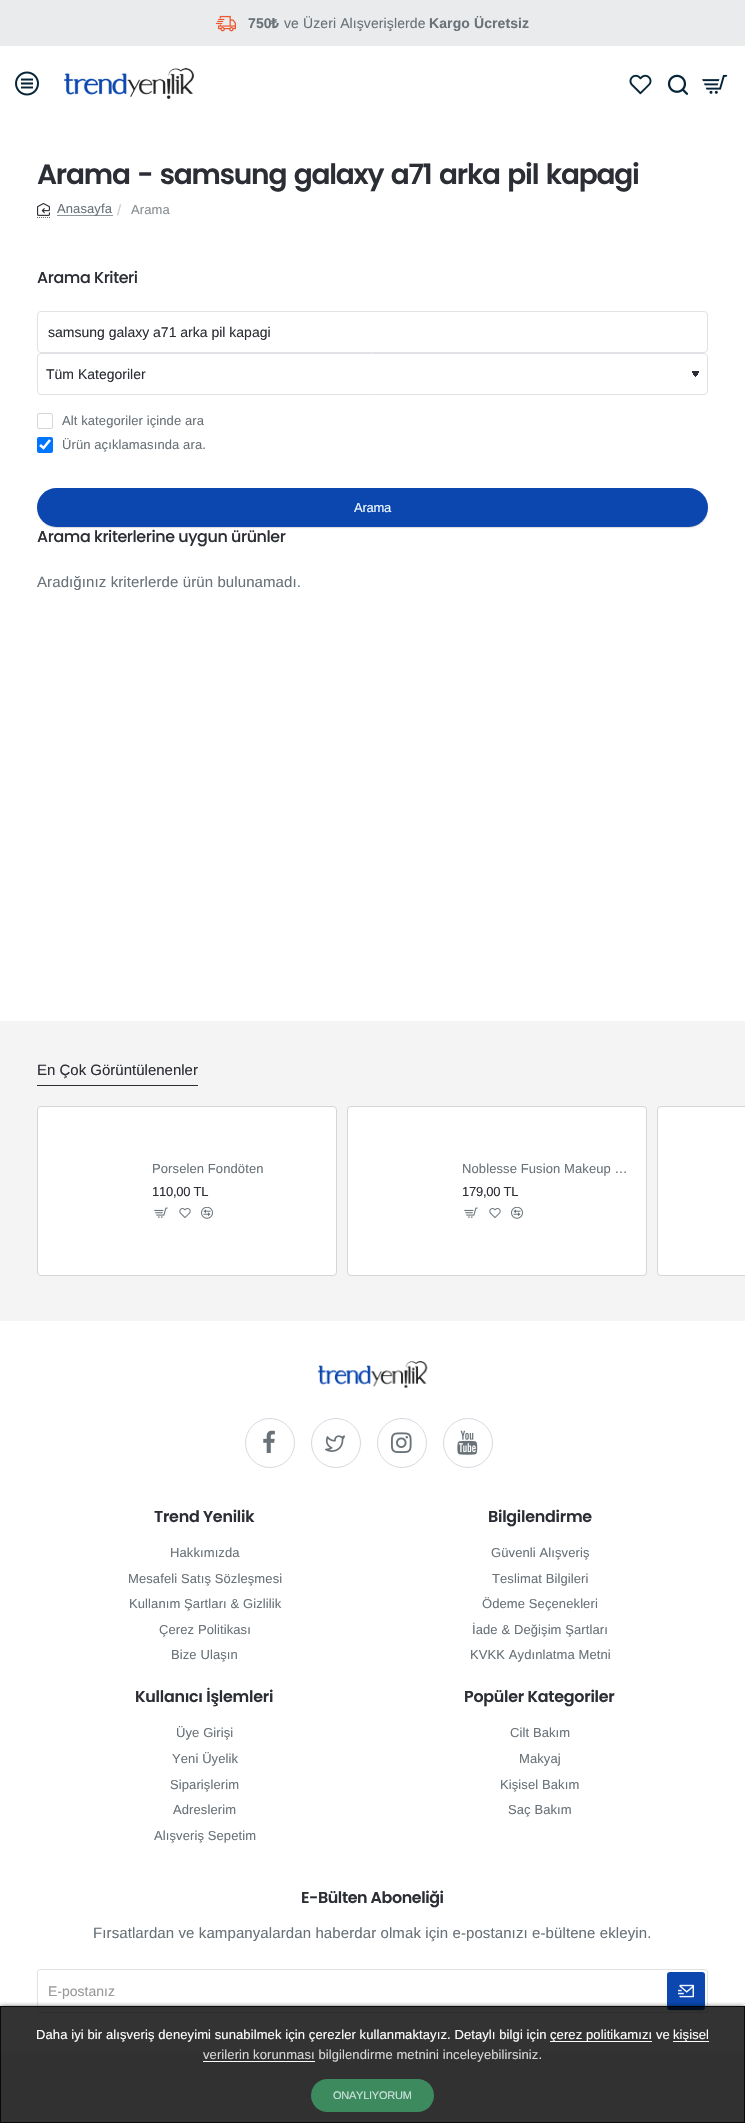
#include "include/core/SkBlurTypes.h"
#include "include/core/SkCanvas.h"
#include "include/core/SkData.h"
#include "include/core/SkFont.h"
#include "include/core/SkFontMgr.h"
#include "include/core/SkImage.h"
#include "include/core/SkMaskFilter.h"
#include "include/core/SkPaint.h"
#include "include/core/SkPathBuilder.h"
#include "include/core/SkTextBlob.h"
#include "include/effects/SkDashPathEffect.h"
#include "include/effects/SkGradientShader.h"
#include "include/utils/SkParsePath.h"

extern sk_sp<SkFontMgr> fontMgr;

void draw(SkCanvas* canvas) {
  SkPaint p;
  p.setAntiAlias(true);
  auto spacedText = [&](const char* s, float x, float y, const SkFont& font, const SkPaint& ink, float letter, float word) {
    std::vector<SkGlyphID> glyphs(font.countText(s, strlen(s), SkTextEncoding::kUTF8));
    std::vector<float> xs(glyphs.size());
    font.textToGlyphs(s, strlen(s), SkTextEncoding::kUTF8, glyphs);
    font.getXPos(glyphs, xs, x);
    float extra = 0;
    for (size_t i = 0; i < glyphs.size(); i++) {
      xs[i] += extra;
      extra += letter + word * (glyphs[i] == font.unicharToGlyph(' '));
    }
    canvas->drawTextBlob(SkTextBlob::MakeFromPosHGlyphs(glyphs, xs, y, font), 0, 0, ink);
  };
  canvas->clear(SK_ColorWHITE);
  p.setColor(SkColorSetRGB(233, 235, 237));
  canvas->drawRect(SkRect::MakeLTRB(0, 0, 745, 46), p);
  canvas->drawImageRect(SkImages::DeferredFromEncodedData(SkData::MakeFromFileName("images/1.png")), SkRect::MakeLTRB(216, 15, 236, 32), SkSamplingOptions());
  canvas->drawImageRect(SkImages::DeferredFromEncodedData(SkData::MakeFromFileName("images/2.png")), SkRect::MakeLTRB(64, 67, 194, 99), SkSamplingOptions());
  canvas->drawImageRect(SkImages::DeferredFromEncodedData(SkData::MakeFromFileName("images/3.png")), SkRect::MakeLTRB(15, 71, 39, 96), SkSamplingOptions());
  canvas->drawImageRect(SkImages::DeferredFromEncodedData(SkData::MakeFromFileName("images/4.png")), SkRect::MakeLTRB(629, 74, 652, 95), SkSamplingOptions());
  canvas->drawImageRect(SkImages::DeferredFromEncodedData(SkData::MakeFromFileName("images/5.png")), SkRect::MakeLTRB(667, 74, 689, 95), SkSamplingOptions());
  canvas->drawImageRect(SkImages::DeferredFromEncodedData(SkData::MakeFromFileName("images/6.png")), SkRect::MakeLTRB(702, 74, 728, 94), SkSamplingOptions());
  p.setStyle(SkPaint::kStroke_Style);
  p.setStrokeWidth(1);
  p.setColor(SkColorSetRGB(105, 114, 120));
  p.setPathEffect(SkDashPathEffect::Make({{1, 1}}, 0));
  canvas->drawPath(SkPathBuilder().moveTo(37, 217.5f).lineTo(50.5f, 217.5f).detach(), p);
  p.setPathEffect(nullptr);
  canvas->drawImageRect(SkImages::DeferredFromEncodedData(SkData::MakeFromFileName("images/7.png")), SkRect::MakeLTRB(37, 203, 50, 216), SkSamplingOptions());
  p.setPathEffect(SkDashPathEffect::Make({{1, 1}}, 0));
  canvas->drawPath(SkPathBuilder().moveTo(57.5f, 215.5f).lineTo(112.5f, 215.5f).moveTo(57.5f, 215.5f).lineTo(112.5f, 215.5f).detach(), p);
  p.setPathEffect(nullptr);
  p.setColor(SkColorSetRGB(224, 226, 230));
  canvas->drawRoundRect(SkRect::MakeLTRB(37.5f, 311.5f, 707.5f, 352.5f), 3.5f, 3.5f, p);
  p.setStyle(SkPaint::kFill_Style);
  {
    const SkColor colors[] = {SkColorSetRGB(44, 46, 53), SK_ColorWHITE};
    const float stops[] = {0.63f, 0.63f};
    const SkPoint ends[] = {{702, 370}, {689, 378}};
    p.setShader(SkGradientShader::MakeLinear(ends, colors, stops, 2, SkTileMode::kClamp));
    p.setAlpha(255);
  }
  canvas->drawRect(SkRect::MakeLTRB(688, 371, 703, 377), p);
  {
    const SkColor colors[] = {SkColorSetARGB(0, 255, 255, 255), SK_ColorWHITE};
    const float stops[] = {0.63f, 0.63f};
    const SkPoint ends[] = {{689, 370}, {702, 378}};
    p.setShader(SkGradientShader::MakeLinear(ends, colors, stops, 2, SkTileMode::kClamp));
    p.setAlpha(255);
  }
  canvas->drawRect(SkRect::MakeLTRB(688, 371, 703, 377), p);
  p.setStyle(SkPaint::kStroke_Style);
  p.setShader(nullptr);
  p.setColor(SkColorSetRGB(224, 226, 230));
  canvas->drawRoundRect(SkRect::MakeLTRB(37.5f, 353.5f, 707.5f, 394.5f), 3.5f, 3.5f, p);
  p.setColor(SkColorSetRGB(214, 214, 214));
  canvas->drawRoundRect(SkRect::MakeLTRB(37.5f, 413.5f, 52.5f, 428.5f), 1.5f, 1.5f, p);
  p.setStyle(SkPaint::kFill_Style);
  p.setColor(SkColorSetRGB(0, 117, 255));
  canvas->drawRoundRect(SkRect::MakeLTRB(37, 437, 53, 453), 2, 2, p);
  p.setStyle(SkPaint::kStroke_Style);
  p.setStrokeWidth(2.6f);
  p.setColor(SK_ColorWHITE);
  canvas->drawPath(SkPathBuilder().moveTo(40, 445).lineTo(43.5f, 448).lineTo(50, 440).detach(), p);
  p.setStyle(SkPaint::kFill_Style);
  p.setColor(SkColorSetARGB(26, 0, 0, 0));
  p.setMaskFilter(SkMaskFilter::MakeBlur(kNormal_SkBlurStyle, 1));
  canvas->drawRoundRect(SkRect::MakeLTRB(41, 493, 707, 527), 17, 17, p);
  p.setMaskFilter(nullptr);
  p.setMaskFilter(SkMaskFilter::MakeBlur(kNormal_SkBlurStyle, 0.5f));
  canvas->drawRoundRect(SkRect::MakeLTRB(39, 490, 707, 527), 18.5f, 18.5f, p);
  p.setMaskFilter(nullptr);
  p.setMaskFilter(SkMaskFilter::MakeBlur(kNormal_SkBlurStyle, 0.5f));
  canvas->drawRoundRect(SkRect::MakeLTRB(37, 489, 708, 528), 19.5f, 19.5f, p);
  p.setMaskFilter(nullptr);
  p.setColor(SkColorSetRGB(11, 71, 175));
  canvas->drawRoundRect(SkRect::MakeLTRB(37, 488, 708, 527), 19.5f, 19.5f, p);
  p.setColor(SkColorSetRGB(244, 244, 244));
  canvas->drawRect(SkRect::MakeLTRB(0, 1021, 745, 1321), p);
  p.setColor(SkColorSetRGB(44, 46, 53));
  canvas->drawRect(SkRect::MakeLTRB(37, 1085, 198, 1086), p);
  p.setColor(SK_ColorWHITE);
  canvas->drawRoundRect(SkRect::MakeLTRB(37.5f, 1106.5f, 336.5f, 1275.5f), 3.5f, 3.5f, p);
  p.setStyle(SkPaint::kStroke_Style);
  p.setStrokeWidth(1);
  p.setColor(SkColorSetRGB(212, 213, 216));
  canvas->drawRoundRect(SkRect::MakeLTRB(37.5f, 1106.5f, 336.5f, 1275.5f), 3.5f, 3.5f, p);
  canvas->drawImageRect(SkImages::DeferredFromEncodedData(SkData::MakeFromFileName("images/8.png")), SkRect::MakeLTRB(154, 1207, 168, 1218), SkSamplingOptions());
  canvas->drawImageRect(SkImages::DeferredFromEncodedData(SkData::MakeFromFileName("images/9.png")), SkRect::MakeLTRB(179, 1208, 191, 1218), SkSamplingOptions());
  canvas->drawImageRect(SkImages::DeferredFromEncodedData(SkData::MakeFromFileName("images/10.png")), SkRect::MakeLTRB(201, 1207, 213, 1219), SkSamplingOptions());
  p.setStyle(SkPaint::kFill_Style);
  p.setColor(SK_ColorWHITE);
  canvas->drawRoundRect(SkRect::MakeLTRB(347.5f, 1106.5f, 646.5f, 1275.5f), 3.5f, 3.5f, p);
  p.setStyle(SkPaint::kStroke_Style);
  p.setColor(SkColorSetRGB(212, 213, 216));
  canvas->drawRoundRect(SkRect::MakeLTRB(347.5f, 1106.5f, 646.5f, 1275.5f), 3.5f, 3.5f, p);
  canvas->drawImageRect(SkImages::DeferredFromEncodedData(SkData::MakeFromFileName("images/8.png")), SkRect::MakeLTRB(464, 1207, 478, 1218), SkSamplingOptions());
  canvas->drawImageRect(SkImages::DeferredFromEncodedData(SkData::MakeFromFileName("images/9.png")), SkRect::MakeLTRB(489, 1208, 501, 1218), SkSamplingOptions());
  canvas->drawImageRect(SkImages::DeferredFromEncodedData(SkData::MakeFromFileName("images/10.png")), SkRect::MakeLTRB(511, 1207, 523, 1219), SkSamplingOptions());
  p.setStyle(SkPaint::kFill_Style);
  p.setColor(SK_ColorWHITE);
  canvas->drawPath(SkPathBuilder().moveTo(661, 1106).lineTo(745, 1106).lineTo(745, 1276).lineTo(661, 1276).cubicTo(659, 1276, 657, 1274, 657, 1272).lineTo(657, 1110).cubicTo(657, 1108, 659, 1106, 661, 1106).close().detach(), p);
  p.setStyle(SkPaint::kStroke_Style);
  p.setColor(SkColorSetRGB(212, 213, 216));
  canvas->drawRoundRect(SkRect::MakeLTRB(657.5f, 1106.5f, 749.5f, 1275.5f), 3.5f, 3.5f, p);
  canvas->drawImageRect(SkImages::DeferredFromEncodedData(SkData::MakeFromFileName("images/11.png")), SkRect::MakeLTRB(318, 1361, 428, 1388), SkSamplingOptions());
  p.setColor(SkColorSetRGB(215, 217, 224));
  canvas->drawCircle(270, 1443, 24.5f, p);
  canvas->drawImageRect(SkImages::DeferredFromEncodedData(SkData::MakeFromFileName("images/12.png")), SkRect::MakeLTRB(263, 1430, 275, 1453), SkSamplingOptions());
  canvas->drawCircle(336, 1443, 24.5f, p);
  canvas->drawImageRect(SkImages::DeferredFromEncodedData(SkData::MakeFromFileName("images/13.png")), SkRect::MakeLTRB(325, 1435, 345, 1452), SkSamplingOptions());
  canvas->drawCircle(402, 1443, 24.5f, p);
  canvas->drawImageRect(SkImages::DeferredFromEncodedData(SkData::MakeFromFileName("images/14.png")), SkRect::MakeLTRB(391, 1432, 412, 1453), SkSamplingOptions());
  canvas->drawCircle(468, 1443, 24.5f, p);
  canvas->drawImageRect(SkImages::DeferredFromEncodedData(SkData::MakeFromFileName("images/15.png")), SkRect::MakeLTRB(457, 1430, 478, 1455), SkSamplingOptions());
  p.setColor(SkColorSetRGB(224, 226, 230));
  canvas->drawRoundRect(SkRect::MakeLTRB(37.5f, 1969.5f, 707.5f, 2012.5f), 2.5f, 2.5f, p);
  p.setStyle(SkPaint::kFill_Style);
  p.setColor(SkColorSetARGB(26, 0, 0, 0));
  p.setMaskFilter(SkMaskFilter::MakeBlur(kNormal_SkBlurStyle, 1));
  canvas->drawRoundRect(SkRect::MakeLTRB(671, 1977, 704, 2010), 0.5f, 0.5f, p);
  p.setMaskFilter(nullptr);
  p.setMaskFilter(SkMaskFilter::MakeBlur(kNormal_SkBlurStyle, 0.5f));
  canvas->drawRoundRect(SkRect::MakeLTRB(667, 1973, 705, 2011), 3, 3, p);
  p.setMaskFilter(nullptr);
  p.setColor(SkColorSetRGB(11, 71, 175));
  canvas->drawRoundRect(SkRect::MakeLTRB(667, 1972, 705, 2010), 3, 3, p);
  canvas->drawImageRect(SkImages::DeferredFromEncodedData(SkData::MakeFromFileName("images/16.png")), SkRect::MakeLTRB(678, 1984, 694, 1998), SkSamplingOptions());
  p.setColor(SkColorSetRGB(244, 244, 244));
  canvas->drawRect(SkRect::MakeLTRB(0, 2053, 745, 2123), p);
  canvas->save();
  canvas->clipRect(SkRect::MakeLTRB(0, 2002, 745, 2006));
  p.setColor(SkColorSetARGB(204, 0, 0, 0));
  p.setMaskFilter(SkMaskFilter::MakeBlur(kNormal_SkBlurStyle, 2.5f));
  canvas->drawRect(SkRect::MakeLTRB(0, 2007, 745, 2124), p);
  p.setMaskFilter(nullptr);
  canvas->restore();
  canvas->drawRect(SkRect::MakeLTRB(0, 2006, 745, 2123), p);
  p.setStyle(SkPaint::kStroke_Style);
  canvas->drawRect(SkRect::MakeLTRB(0.5f, 2006.5f, 744.5f, 2122.5f), p);
  p.setStyle(SkPaint::kFill_Style);
  p.setColor(SK_ColorWHITE);
  canvas->drawRect(SkRect::MakeLTRB(550, 2041, 652, 2042), p);
  canvas->drawRect(SkRect::MakeLTRB(673, 2041, 709, 2042), p);
  p.setColor(SkColorSetRGB(253, 253, 253));
  canvas->drawRect(SkRect::MakeLTRB(203, 2061, 315, 2062), p);
  p.setColor(SkColorSetARGB(204, 63, 160, 104));
  canvas->drawRoundRect(SkRect::MakeLTRB(311, 2079, 434, 2112), 16.5f, 16.5f, p);
  SkFont font1(fontMgr->matchFamilyStyle("Liberation Sans", SkFontStyle::Bold()), 14);
  font1.setSubpixel(true);
  p.setColor(SkColorSetRGB(105, 114, 120));
  spacedText("750", 248, 28, font1, p, 0.1f, 0);
  SkFont font2(fontMgr->matchFamilyStyle("Noto Sans", SkFontStyle::Bold()), 14);
  font2.setSubpixel(true);
  spacedText("₺", 271, 28, font2, p, 0.1f, 0);
  SkFont font3(fontMgr->matchFamilyStyle("Liberation Sans", SkFontStyle::Normal()), 14);
  font3.setSubpixel(true);
  spacedText("ve Üzeri Alışverişlerde", 284, 28, font3, p, 0.1f, 0);
  spacedText("Kargo Ücretsiz", 429, 28, font1, p, 0.1f, 0);
  SkFont font4(fontMgr->matchFamilyStyle("Poppins", SkFontStyle(600, SkFontStyle::kNormal_Width, SkFontStyle::kUpright_Slant)), 28);
  font4.setSubpixel(true);
  p.setColor(SkColorSetRGB(44, 46, 53));
  spacedText("Arama - samsung galaxy a71 arka pil kapagi", 37, 184, font4, p, -1.2f, 2);
  SkFont font5(fontMgr->matchFamilyStyle("Liberation Sans", SkFontStyle::Normal()), 13);
  font5.setSubpixel(true);
  p.setColor(SkColorSetRGB(105, 114, 120));
  spacedText("Anasayfa", 57, 213, font5, p, 0.1f, 0);
  SkFont font6(fontMgr->matchFamilyStyle("Liberation Sans", SkFontStyle::Normal()), 15);
  font6.setSubpixel(true);
  p.setColor(SkColorSetRGB(204, 204, 204));
  spacedText("/", 117, 215, font6, p, 0.1f, 0);
  p.setColor(SkColorSetRGB(135, 142, 147));
  spacedText("Arama", 131, 214, font5, p, 0.1f, 0);
  SkFont font7(fontMgr->matchFamilyStyle("Poppins", SkFontStyle(500, SkFontStyle::kNormal_Width, SkFontStyle::kUpright_Slant)), 15.9f);
  font7.setSubpixel(true);
  p.setColor(SkColorSetRGB(44, 46, 53));
  spacedText("Arama Kriteri", 37, 283, font7, p, -0.4f, 0);
  canvas->drawString("samsung galaxy a71 arka pil kapagi", 48, 337, font3, p);
  canvas->drawString("Tüm Kategoriler", 46, 379, font3, p);
  p.setColor(SkColorSetRGB(105, 114, 120));
  spacedText("Alt kategoriler içinde ara", 62, 425, font5, p, 0.1f, 0);
  spacedText("Ürün açıklamasında ara.", 62, 449, font5, p, 0.1f, 0);
  p.setColor(SkColorSetRGB(241, 248, 255));
  spacedText("Arama", 354, 512, font5, p, -0.25f, 0);
  p.setColor(SkColorSetRGB(44, 46, 53));
  spacedText("Arama kriterlerine uygun ürünler", 37, 542, font7, p, -0.4f, 0);
  p.setColor(SkColorSetRGB(105, 114, 120));
  spacedText("Aradığınız kriterlerde ürün bulunamadı.", 37, 587, font6, p, 0.1f, 0);
  p.setColor(SkColorSetRGB(44, 46, 53));
  canvas->drawString("En Çok Görüntülenenler", 37, 1075, font6, p);
  p.setColor(SkColorSetRGB(105, 114, 120));
  spacedText("Porselen Fondöten", 152, 1173, font5, p, 0.1f, 0);
  p.setColor(SkColorSetRGB(44, 46, 53));
  spacedText("110,00 TL", 152, 1196, font5, p, -0.25f, 0);
  p.setColor(SkColorSetRGB(105, 114, 120));
  spacedText("Noblesse Fusion Makeup …", 462, 1173, font5, p, 0.1f, 0);
  p.setColor(SkColorSetRGB(44, 46, 53));
  spacedText("179,00 TL", 462, 1196, font5, p, -0.25f, 0);
  SkFont font8(fontMgr->matchFamilyStyle("Poppins", SkFontStyle(600, SkFontStyle::kNormal_Width, SkFontStyle::kUpright_Slant)), 15.9f);
  font8.setSubpixel(true);
  spacedText("Trend Yenilik", 154, 1522, font8, p, -0.25f, 0);
  p.setColor(SkColorSetRGB(105, 114, 120));
  spacedText("Hakkımızda", 170, 1557, font5, p, 0.1f, 0);
  spacedText("Mesafeli Satış Sözleşmesi", 128, 1583, font5, p, 0.1f, 0);
  spacedText("Kullanım Şartları & Gizlilik", 129, 1608, font5, p, 0.1f, 0);
  spacedText("Çerez Politikası", 159, 1634, font5, p, 0.1f, 0);
  spacedText("Bize Ulaşın", 171, 1659, font5, p, 0.1f, 0);
  p.setColor(SkColorSetRGB(44, 46, 53));
  spacedText("Bilgilendirme", 488, 1522, font8, p, -0.25f, 0);
  p.setColor(SkColorSetRGB(105, 114, 120));
  spacedText("Güvenli Alışveriş", 491, 1557, font5, p, 0.1f, 0);
  spacedText("Teslimat Bilgileri", 492, 1583, font5, p, 0.1f, 0);
  spacedText("Ödeme Seçenekleri", 482, 1608, font5, p, 0.1f, 0);
  spacedText("İade & Değişim Şartları", 472, 1634, font5, p, 0.1f, 0);
  spacedText("KVKK Aydınlatma Metni", 470, 1659, font5, p, 0.1f, 0);
  p.setColor(SkColorSetRGB(44, 46, 53));
  spacedText("Kullanıcı İşlemleri", 135, 1702, font8, p, -0.25f, 0);
  p.setColor(SkColorSetRGB(105, 114, 120));
  spacedText("Üye Girişi", 176, 1737, font5, p, 0.1f, 0);
  spacedText("Yeni Üyelik", 172, 1763, font5, p, 0.1f, 0);
  spacedText("Siparişlerim", 170, 1789, font5, p, 0.1f, 0);
  spacedText("Adreslerim", 173, 1814, font5, p, 0.1f, 0);
  spacedText("Alışveriş Sepetim", 154, 1840, font5, p, 0.1f, 0);
  p.setColor(SkColorSetRGB(44, 46, 53));
  spacedText("Popüler Kategoriler", 464, 1702, font8, p, -0.25f, 0);
  p.setColor(SkColorSetRGB(105, 114, 120));
  spacedText("Cilt Bakım", 510, 1737, font5, p, 0.1f, 0);
  spacedText("Makyaj", 519, 1763, font5, p, 0.1f, 0);
  spacedText("Kişisel Bakım", 500, 1789, font5, p, 0.1f, 0);
  spacedText("Saç Bakım", 508, 1814, font5, p, 0.1f, 0);
  p.setColor(SkColorSetRGB(44, 46, 53));
  spacedText("E-Bülten Aboneliği", 301, 1903, font8, p, -0.4f, 0);
  p.setColor(SkColorSetRGB(105, 114, 120));
  spacedText("Fırsatlardan ve kampanyalardan haberdar olmak için e-postanızı e-bültene ekleyin.", 93, 1938, font6, p, 0.1f, 0);
  p.setColor(SkColorSetRGB(153, 153, 153));
  canvas->drawString("E-postanız", 48, 1996, font3, p);
  p.setColor(SK_ColorWHITE);
  spacedText("Daha iyi bir alışveriş deneyimi sunabilmek için çerezler kullanmaktayız. Detaylı bilgi için", 36, 2039, font5, p, 0.1f, 0);
  spacedText("çerez politikamızı ve", 550, 2039, font5, p, 0.1f, 0);
  spacedText("kişisel", 673, 2039, font5, p, 0.1f, 0);
  p.setColor(SkColorSetRGB(214, 214, 214));
  spacedText("verilerin korunması bilgilendirme metnini inceleyebilirsiniz.", 203, 2059, font5, p, 0.1f, 0);
  SkFont font9(fontMgr->matchFamilyStyle("Liberation Sans", SkFontStyle::Normal()), 11);
  font9.setSubpixel(true);
  p.setColor(SkColorSetRGB(205, 226, 222));
  spacedText("ONAYLIYORUM", 333, 2099, font9, p, -0.25f, 0);
}
